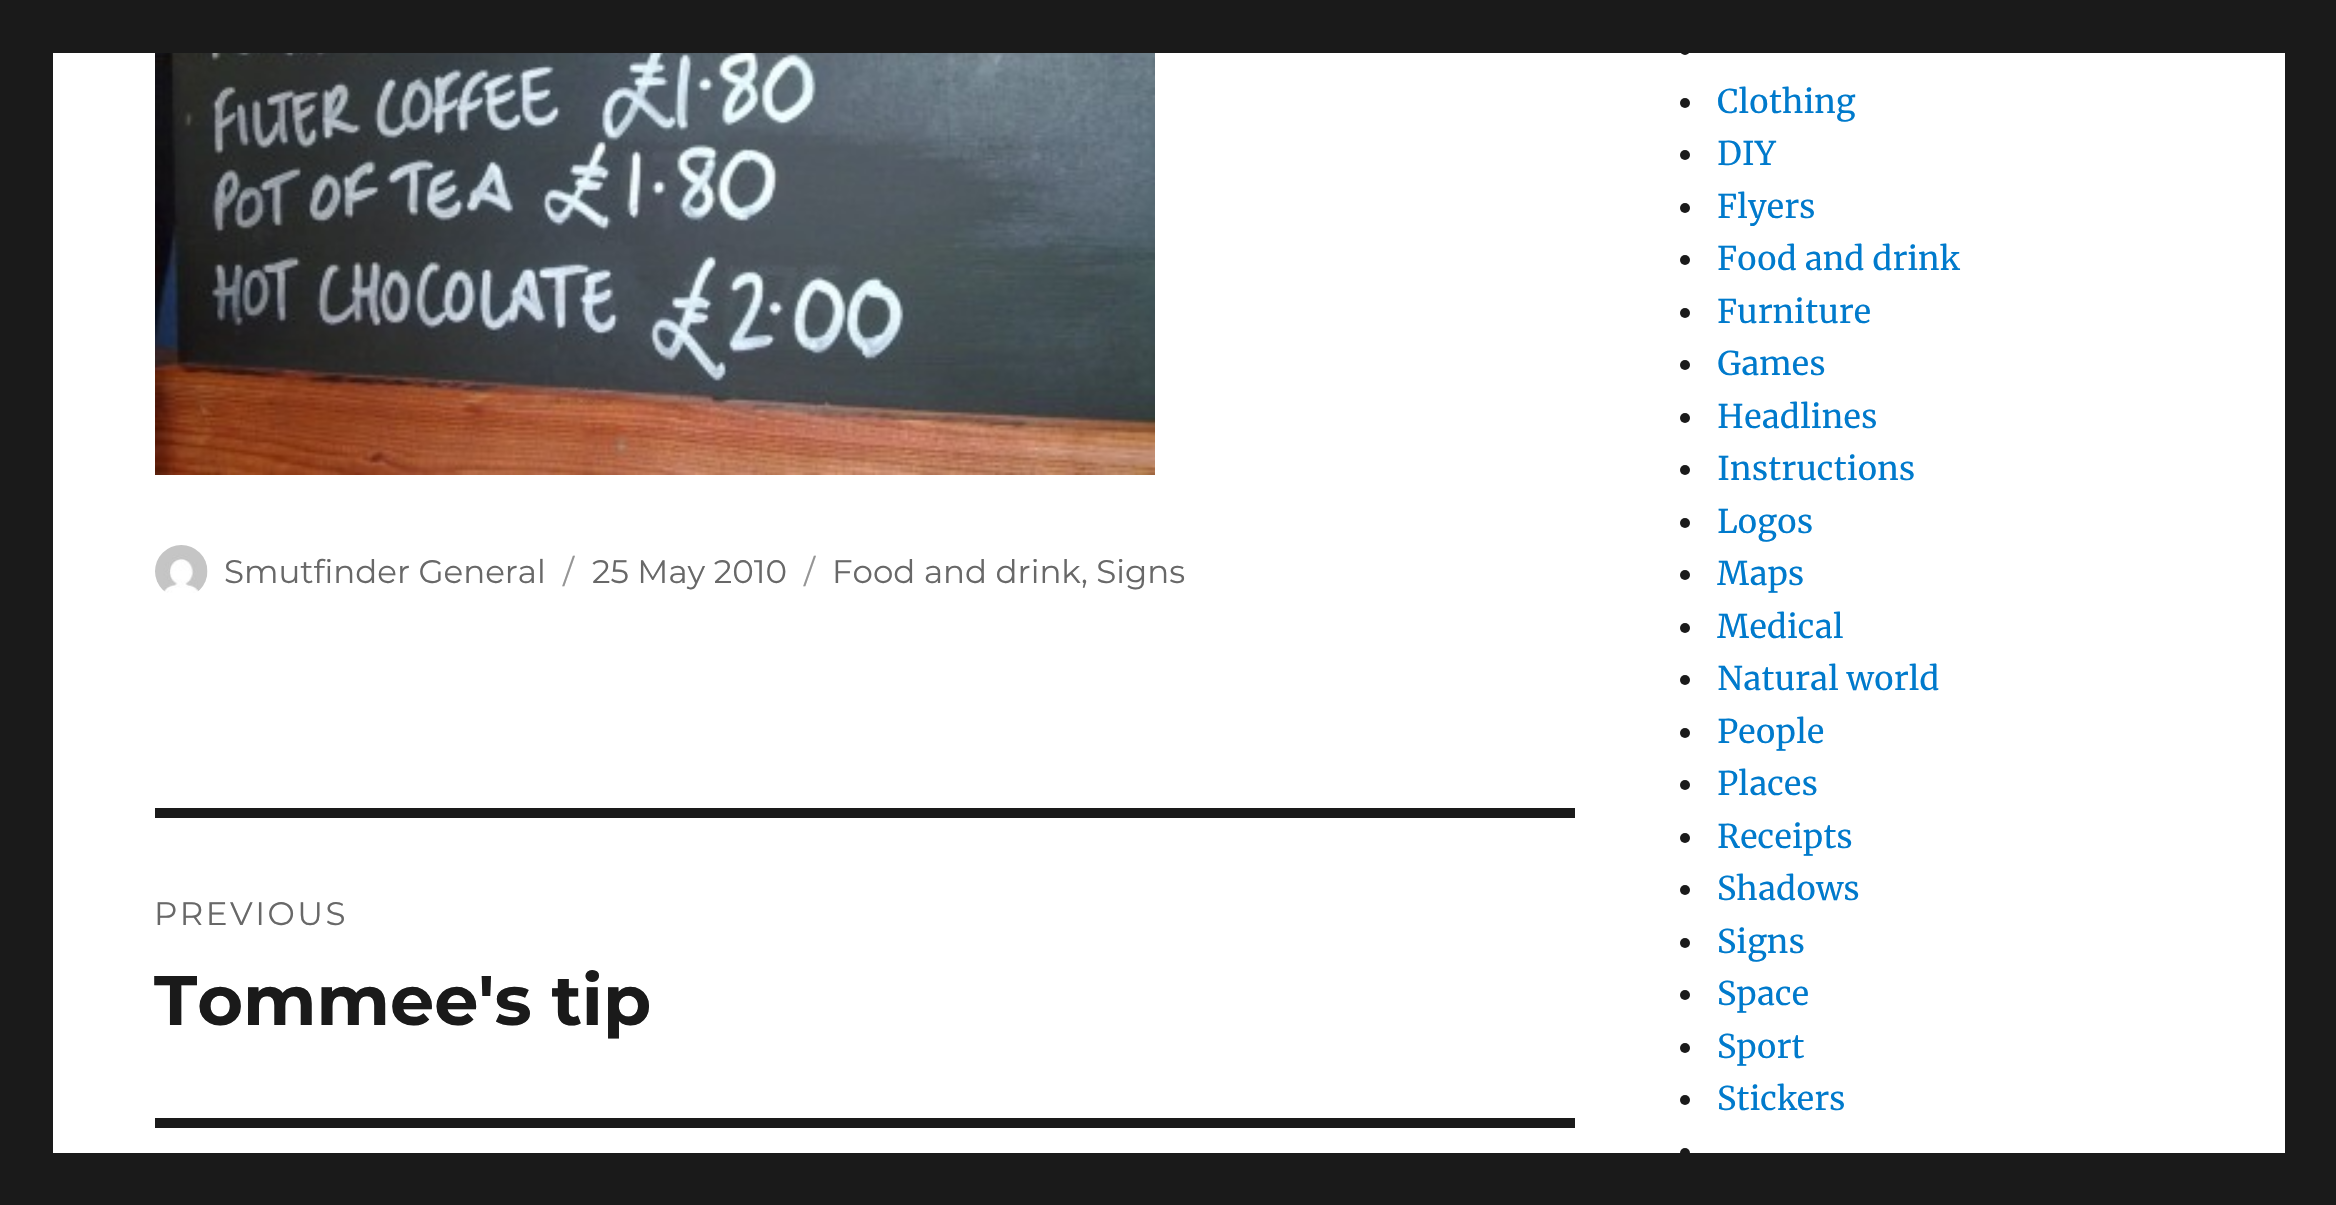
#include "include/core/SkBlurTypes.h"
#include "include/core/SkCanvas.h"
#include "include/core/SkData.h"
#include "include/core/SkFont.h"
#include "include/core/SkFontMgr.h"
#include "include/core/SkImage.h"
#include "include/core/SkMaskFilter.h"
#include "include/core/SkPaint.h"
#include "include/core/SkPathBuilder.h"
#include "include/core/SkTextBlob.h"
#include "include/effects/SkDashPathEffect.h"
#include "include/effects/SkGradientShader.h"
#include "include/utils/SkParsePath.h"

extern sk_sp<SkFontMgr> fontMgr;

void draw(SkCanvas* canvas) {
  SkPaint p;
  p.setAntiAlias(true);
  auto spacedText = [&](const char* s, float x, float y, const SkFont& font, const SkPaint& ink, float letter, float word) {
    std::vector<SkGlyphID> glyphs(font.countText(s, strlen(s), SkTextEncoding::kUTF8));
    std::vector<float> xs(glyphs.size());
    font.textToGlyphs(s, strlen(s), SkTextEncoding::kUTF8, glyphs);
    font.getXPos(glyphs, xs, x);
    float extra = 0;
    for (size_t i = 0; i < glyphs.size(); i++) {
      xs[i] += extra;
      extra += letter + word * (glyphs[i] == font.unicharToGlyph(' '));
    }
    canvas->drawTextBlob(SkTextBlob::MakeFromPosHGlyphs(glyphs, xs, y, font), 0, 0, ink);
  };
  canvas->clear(SkColorSetRGB(26, 26, 26));
  p.setColor(SK_ColorWHITE);
  canvas->drawRect(SkRect::MakeLTRB(53, 53, 2285, 1153), p);
  canvas->drawImageRect(SkImages::DeferredFromEncodedData(SkData::MakeFromFileName("images/1.png")), SkRect::MakeLTRB(155, 53, 1155, 475), SkSamplingOptions());
  canvas->drawImageRect(SkImages::DeferredFromEncodedData(SkData::MakeFromFileName("images/2.png")), SkRect::MakeLTRB(155, 545, 208, 593), SkSamplingOptions());
  p.setColor(SkColorSetRGB(26, 26, 26));
  canvas->drawRect(SkRect::MakeLTRB(155, 808, 1575, 818), p);
  canvas->drawRect(SkRect::MakeLTRB(155, 1118, 1575, 1128), p);
  canvas->drawCircle(1685, 50, 5, p);
  canvas->drawCircle(1685, 103, 5, p);
  canvas->drawCircle(1685, 155, 5, p);
  canvas->drawCircle(1685, 208, 5, p);
  canvas->drawCircle(1685, 260, 5, p);
  canvas->drawCircle(1685, 313, 5, p);
  canvas->drawCircle(1685, 365, 5, p);
  canvas->drawCircle(1685, 418, 5, p);
  canvas->drawCircle(1685, 470, 5, p);
  canvas->drawCircle(1685, 523, 5, p);
  canvas->drawCircle(1685, 575, 5, p);
  canvas->drawCircle(1685, 628, 5, p);
  canvas->drawCircle(1685, 680, 5, p);
  canvas->drawCircle(1685, 733, 5, p);
  canvas->drawCircle(1685, 785, 5, p);
  canvas->drawCircle(1685, 838, 5, p);
  canvas->drawCircle(1685, 890, 5, p);
  canvas->drawCircle(1685, 943, 5, p);
  canvas->drawCircle(1685, 995, 5, p);
  canvas->drawCircle(1685, 1048, 5, p);
  canvas->drawCircle(1685, 1100, 5, p);
  canvas->drawCircle(1685, 1153, 5, p);
  SkFont font1(fontMgr->matchFamilyStyle("Montserrat", SkFontStyle(100, SkFontStyle::kNormal_Width, SkFontStyle::kUpright_Slant)), 32.5f);
  font1.setSubpixel(true);
  p.setColor(SkColorSetRGB(104, 104, 104));
  canvas->drawString("Smutfinder General", 224, 583, font1, p);
  p.setColor(SkColorSetRGB(149, 149, 149));
  canvas->drawString("/", 563, 583, font1, p);
  p.setColor(SkColorSetRGB(104, 104, 104));
  canvas->drawString("25 May 2010", 592, 583, font1, p);
  p.setColor(SkColorSetRGB(149, 149, 149));
  canvas->drawString("/", 804, 583, font1, p);
  p.setColor(SkColorSetRGB(104, 104, 104));
  canvas->drawString("Food and drink, Signs", 832, 583, font1, p);
  spacedText("PREVIOUS", 154, 925, font1, p, 2.5f, 0);
  SkFont font2(fontMgr->matchFamilyStyle("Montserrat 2", SkFontStyle(100, SkFontStyle::kNormal_Width, SkFontStyle::kUpright_Slant)), 70);
  font2.setSubpixel(true);
  p.setColor(SkColorSetRGB(26, 26, 26));
  canvas->drawString("Tommee's tip", 154, 1025, font2, p);
  SkFont font3(fontMgr->matchFamilyStyle("Merriweather", SkFontStyle::Normal()), 32.5f);
  font3.setSubpixel(true);
  p.setColor(SkColorSetRGB(0, 122, 204));
  canvas->drawString("Clothing", 1717, 113, font3, p);
  canvas->drawString("DIY", 1717, 165, font3, p);
  canvas->drawString("Flyers", 1717, 218, font3, p);
  canvas->drawString("Food and drink", 1717, 270, font3, p);
  canvas->drawString("Furniture", 1717, 323, font3, p);
  canvas->drawString("Games", 1717, 375, font3, p);
  canvas->drawString("Headlines", 1717, 428, font3, p);
  canvas->drawString("Instructions", 1717, 480, font3, p);
  canvas->drawString("Logos", 1717, 533, font3, p);
  canvas->drawString("Maps", 1717, 585, font3, p);
  canvas->drawString("Medical", 1717, 638, font3, p);
  canvas->drawString("Natural world", 1717, 690, font3, p);
  canvas->drawString("People", 1717, 743, font3, p);
  canvas->drawString("Places", 1717, 795, font3, p);
  canvas->drawString("Receipts", 1717, 848, font3, p);
  canvas->drawString("Shadows", 1717, 900, font3, p);
  canvas->drawString("Signs", 1717, 953, font3, p);
  canvas->drawString("Space", 1717, 1005, font3, p);
  canvas->drawString("Sport", 1717, 1058, font3, p);
  canvas->drawString("Stickers", 1717, 1110, font3, p);
}
